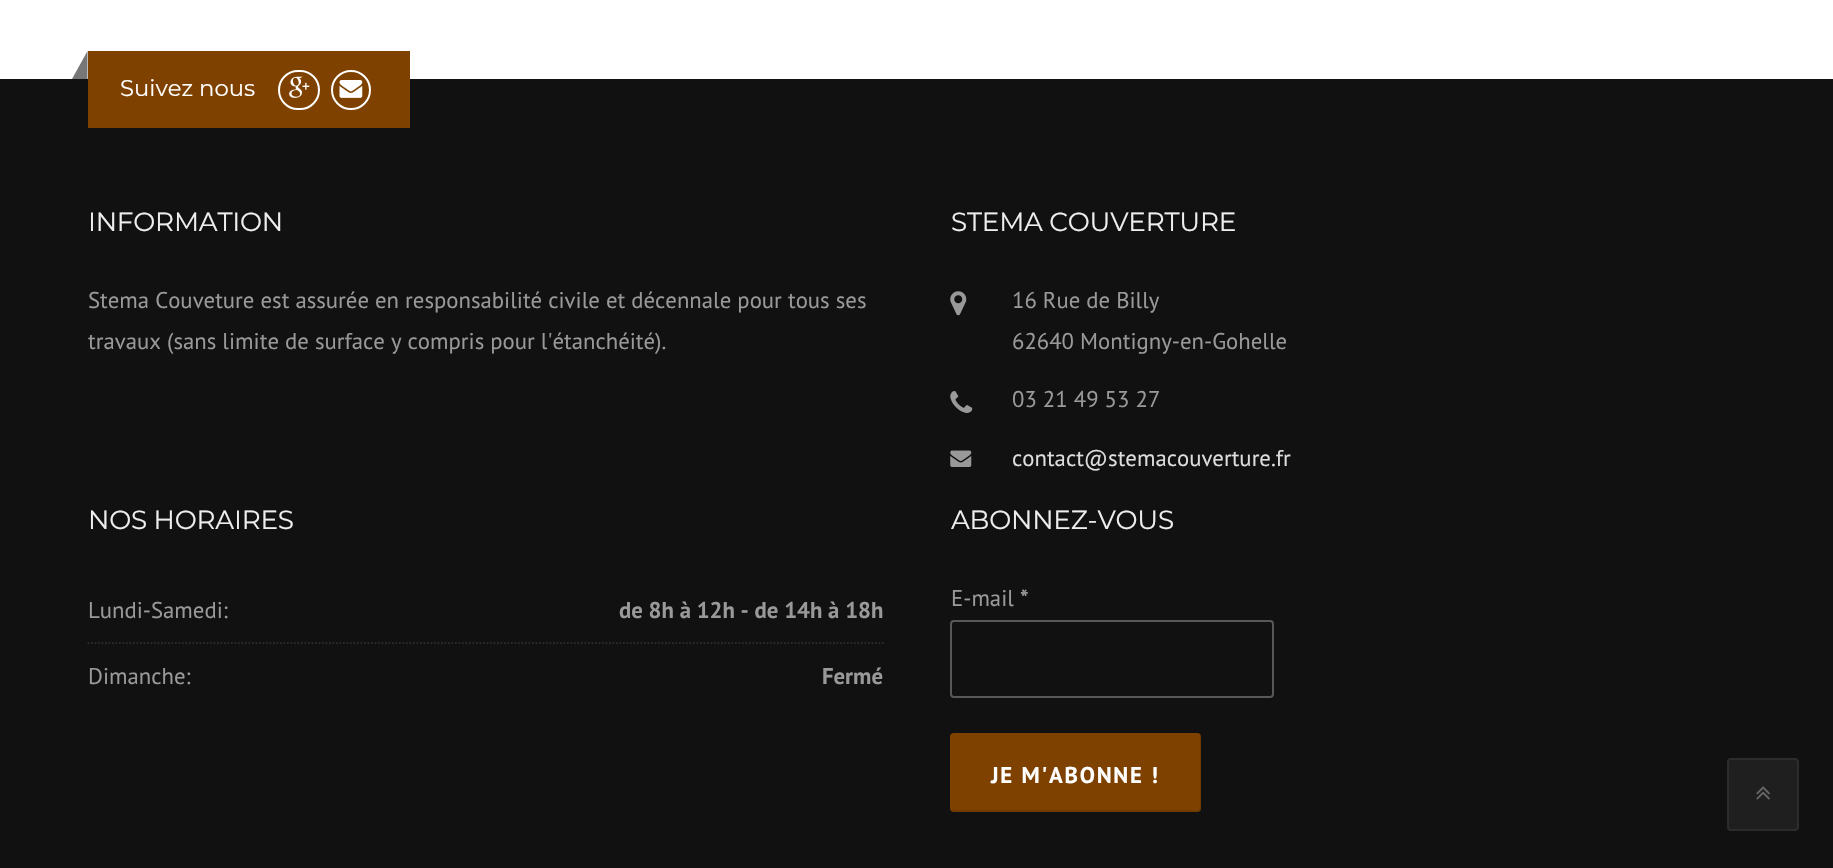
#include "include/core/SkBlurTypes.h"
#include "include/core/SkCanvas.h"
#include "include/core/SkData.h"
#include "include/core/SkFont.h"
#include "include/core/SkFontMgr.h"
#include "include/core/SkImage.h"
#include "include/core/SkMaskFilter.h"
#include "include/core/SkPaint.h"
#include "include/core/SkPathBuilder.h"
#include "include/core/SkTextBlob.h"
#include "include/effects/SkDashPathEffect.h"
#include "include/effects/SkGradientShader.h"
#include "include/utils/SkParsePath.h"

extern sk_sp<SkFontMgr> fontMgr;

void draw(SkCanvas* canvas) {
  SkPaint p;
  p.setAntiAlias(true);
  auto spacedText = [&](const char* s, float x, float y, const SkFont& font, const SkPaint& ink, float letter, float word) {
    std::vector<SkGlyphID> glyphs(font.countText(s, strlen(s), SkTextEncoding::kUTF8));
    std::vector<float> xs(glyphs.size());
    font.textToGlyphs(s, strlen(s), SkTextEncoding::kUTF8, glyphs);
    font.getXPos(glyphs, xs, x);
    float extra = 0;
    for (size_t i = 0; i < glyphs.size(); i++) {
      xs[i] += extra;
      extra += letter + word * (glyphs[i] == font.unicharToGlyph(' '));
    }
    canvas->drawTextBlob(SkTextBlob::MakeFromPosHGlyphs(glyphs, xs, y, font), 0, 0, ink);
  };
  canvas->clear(SK_ColorWHITE);
  p.setColor(SkColorSetRGB(17, 17, 17));
  canvas->drawRect(SkRect::MakeLTRB(0, 79, 1833, 868), p);
  p.setColor(SkColorSetRGB(126, 65, 0));
  canvas->drawRect(SkRect::MakeLTRB(88, 51, 410, 128), p);
  p.setColor(SkColorSetRGB(119, 119, 119));
  canvas->drawPath(SkPathBuilder().moveTo(87.5f, 51).lineTo(87.5f, 79).lineTo(72, 79).close().detach(), p);
  p.setStyle(SkPaint::kStroke_Style);
  p.setStrokeWidth(2);
  p.setColor(SK_ColorWHITE);
  canvas->drawRoundRect(SkRect::MakeLTRB(279, 71, 319, 109), 19, 19, p);
  canvas->drawImageRect(SkImages::DeferredFromEncodedData(SkData::MakeFromFileName("images/1.png")), SkRect::MakeLTRB(289, 76, 310, 98), SkSamplingOptions());
  canvas->drawCircle(351, 90, 19, p);
  canvas->drawImageRect(SkImages::DeferredFromEncodedData(SkData::MakeFromFileName("images/2.png")), SkRect::MakeLTRB(339, 80, 363, 98), SkSamplingOptions());
  canvas->drawImageRect(SkImages::DeferredFromEncodedData(SkData::MakeFromFileName("images/3.png")), SkRect::MakeLTRB(950, 291, 967, 316), SkSamplingOptions());
  canvas->drawImageRect(SkImages::DeferredFromEncodedData(SkData::MakeFromFileName("images/4.png")), SkRect::MakeLTRB(950, 391, 973, 413), SkSamplingOptions());
  canvas->drawImageRect(SkImages::DeferredFromEncodedData(SkData::MakeFromFileName("images/5.png")), SkRect::MakeLTRB(950, 450, 972, 467), SkSamplingOptions());
  p.setStrokeWidth(1.8f);
  p.setColor(SkColorSetRGB(41, 41, 41));
  p.setPathEffect(SkDashPathEffect::Make({{1.75f, 1.75f}}, 0));
  canvas->drawPath(SkPathBuilder().moveTo(87.5f, 643).lineTo(884, 643).detach(), p);
  p.setPathEffect(nullptr);
  p.setStrokeWidth(2);
  p.setColor(SkColorSetRGB(88, 88, 88));
  canvas->drawRoundRect(SkRect::MakeLTRB(951, 621, 1273, 697), 3, 3, p);
  p.setStyle(SkPaint::kFill_Style);
  p.setColor(SkColorSetRGB(126, 65, 0));
  canvas->drawRoundRect(SkRect::MakeLTRB(950, 733, 1201, 812), 4, 4, p);
  p.setColor(SkColorSetARGB(26, 0, 0, 0));
  canvas->drawPath(SkPathBuilder().moveTo(950, 807).lineTo(950, 808).cubicTo(950, 810, 952, 812, 954, 812).lineTo(1197, 812).cubicTo(1199, 812, 1201, 810, 1201, 808).lineTo(1201, 737).cubicTo(1201, 736, 1201, 735, 1200, 734).lineTo(1200, 807).cubicTo(1200, 809, 1199, 810, 1197, 810).lineTo(954, 810).cubicTo(952, 810, 950, 809, 950, 807).close().detach(), p);
  p.setColor(SkColorSetRGB(31, 31, 31));
  canvas->drawRoundRect(SkRect::MakeLTRB(1728, 759, 1798, 830), 3, 3, p);
  p.setStyle(SkPaint::kStroke_Style);
  p.setColor(SkColorSetRGB(44, 44, 44));
  canvas->drawRoundRect(SkRect::MakeLTRB(1728, 759, 1798, 830), 3, 3, p);
  canvas->drawImageRect(SkImages::DeferredFromEncodedData(SkData::MakeFromFileName("images/6.png")), SkRect::MakeLTRB(1756, 786, 1770, 800), SkSamplingOptions());
  SkFont font1(fontMgr->matchFamilyStyle("Montserrat", SkFontStyle::Normal()), 22.75f);
  font1.setSubpixel(true);
  p.setStyle(SkPaint::kFill_Style);
  p.setColor(SK_ColorWHITE);
  canvas->drawString("Suivez nous", 120, 96, font1, p);
  SkFont font2(fontMgr->matchFamilyStyle("Montserrat", SkFontStyle::Normal()), 26.25f);
  font2.setSubpixel(true);
  p.setColor(SkColorSetRGB(238, 238, 238));
  spacedText("INFORMATION", 88, 231, font2, p, -0.2f, 0);
  SkFont font3(fontMgr->matchFamilyStyle("PT Sans", SkFontStyle::Normal()), 22.75f);
  font3.setSubpixel(true);
  p.setColor(SkColorSetRGB(153, 153, 153));
  canvas->drawString("Stema Couveture est assurée en responsabilité civile et décennale pour tous ses", 88, 308, font3, p);
  canvas->drawString("travaux (sans limite de surface y compris pour l'étanchéité).", 88, 349, font3, p);
  p.setColor(SkColorSetRGB(238, 238, 238));
  spacedText("STEMA COUVERTURE", 951, 231, font2, p, -0.2f, 0);
  p.setColor(SkColorSetRGB(153, 153, 153));
  canvas->drawString("16 Rue de Billy", 1012, 308, font3, p);
  canvas->drawString("62640 Montigny-en-Gohelle", 1012, 349, font3, p);
  canvas->drawString("03 21 49 53 27", 1012, 407, font3, p);
  p.setColor(SkColorSetRGB(221, 221, 221));
  canvas->drawString("contact@stemacouverture.fr", 1012, 466, font3, p);
  p.setColor(SkColorSetRGB(238, 238, 238));
  spacedText("NOS HORAIRES", 88, 529, font2, p, -0.2f, 0);
  p.setColor(SkColorSetRGB(153, 153, 153));
  canvas->drawString("Lundi-Samedi:", 88, 618, font3, p);
  SkFont font4(fontMgr->matchFamilyStyle("PT Sans", SkFontStyle::Bold()), 22.75f);
  font4.setSubpixel(true);
  canvas->drawString("de 8h à 12h - de 14h à 18h", 619, 618, font4, p);
  canvas->drawString("Dimanche:", 88, 684, font3, p);
  canvas->drawString("Fermé", 822, 684, font4, p);
  p.setColor(SkColorSetRGB(238, 238, 238));
  spacedText("ABONNEZ-VOUS", 951, 529, font2, p, -0.2f, 0);
  p.setColor(SkColorSetRGB(153, 153, 153));
  canvas->drawString("E-mail", 951, 606, font3, p);
  canvas->drawString("*", 1020, 606, font4, p);
  p.setColor(SK_ColorWHITE);
  spacedText("JE M'ABONNE !", 991, 783, font4, p, 1.75f, 0);
}
